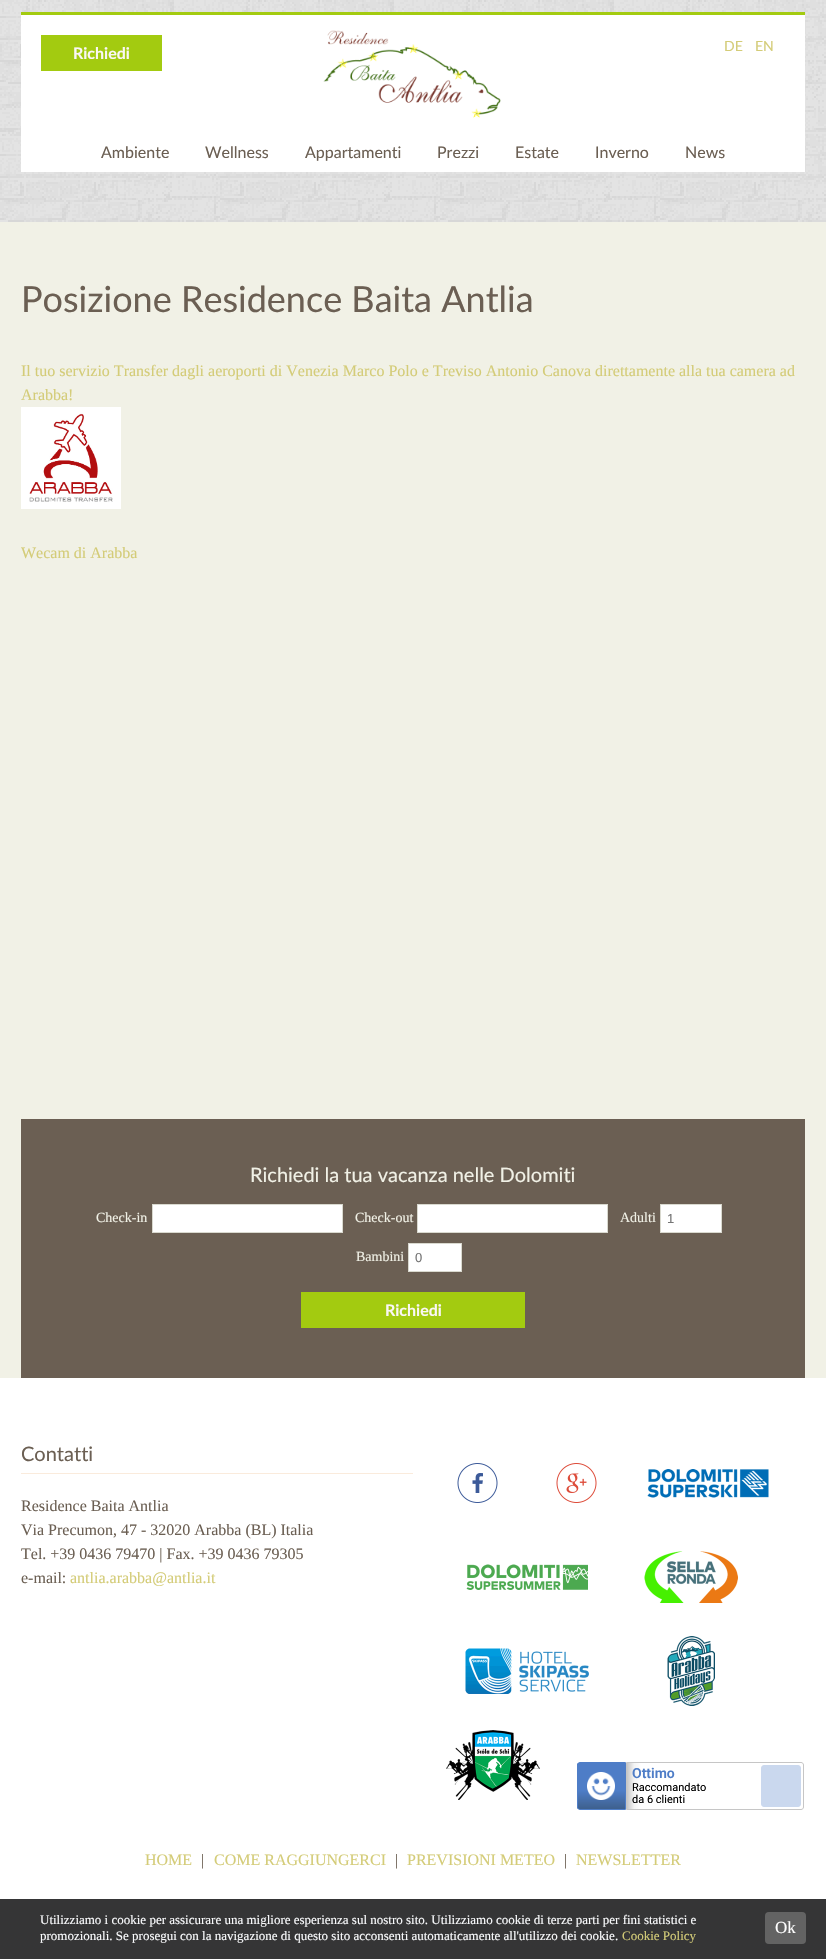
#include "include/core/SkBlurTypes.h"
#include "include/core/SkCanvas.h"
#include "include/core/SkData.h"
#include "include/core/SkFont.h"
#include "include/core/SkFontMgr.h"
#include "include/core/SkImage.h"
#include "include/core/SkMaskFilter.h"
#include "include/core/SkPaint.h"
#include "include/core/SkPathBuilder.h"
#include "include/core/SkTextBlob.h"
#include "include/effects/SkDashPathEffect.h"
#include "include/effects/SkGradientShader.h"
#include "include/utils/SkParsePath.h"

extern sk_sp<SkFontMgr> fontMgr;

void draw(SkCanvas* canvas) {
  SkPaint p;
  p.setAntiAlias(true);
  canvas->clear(SkColorSetRGB(241, 241, 230));
  canvas->drawImageRect(SkImages::DeferredFromEncodedData(SkData::MakeFromFileName("images/1.png")), SkRect::MakeLTRB(0, 0, 826, 222), SkSamplingOptions());
  p.setColor(SK_ColorWHITE);
  canvas->drawRect(SkRect::MakeLTRB(21, 15, 805, 172), p);
  p.setColor(SkColorSetRGB(163, 203, 16));
  canvas->drawRect(SkRect::MakeLTRB(21, 12, 805, 15), p);
  canvas->drawImageRect(SkImages::DeferredFromEncodedData(SkData::MakeFromFileName("images/2.png")), SkRect::MakeLTRB(323, 30, 501, 118), SkSamplingOptions());
  canvas->drawRect(SkRect::MakeLTRB(41, 35, 162, 71), p);
  canvas->drawImageRect(SkImages::DeferredFromEncodedData(SkData::MakeFromFileName("images/3.png")), SkRect::MakeLTRB(21, 407, 121, 509), SkSamplingOptions());
  p.setColor(SkColorSetRGB(107, 95, 83));
  canvas->drawRect(SkRect::MakeLTRB(21, 1119, 805, 1378), p);
  p.setColor(SK_ColorWHITE);
  canvas->drawRect(SkRect::MakeLTRB(152.5f, 1204.5f, 342.5f, 1232.5f), p);
  p.setStyle(SkPaint::kStroke_Style);
  p.setStrokeWidth(1);
  p.setColor(SkColorSetRGB(217, 217, 207));
  canvas->drawRect(SkRect::MakeLTRB(152.5f, 1204.5f, 342.5f, 1232.5f), p);
  p.setStyle(SkPaint::kFill_Style);
  p.setColor(SK_ColorWHITE);
  canvas->drawRect(SkRect::MakeLTRB(417.5f, 1204.5f, 607.5f, 1232.5f), p);
  p.setStyle(SkPaint::kStroke_Style);
  p.setColor(SkColorSetRGB(217, 217, 207));
  canvas->drawRect(SkRect::MakeLTRB(417.5f, 1204.5f, 607.5f, 1232.5f), p);
  p.setStyle(SkPaint::kFill_Style);
  p.setColor(SK_ColorWHITE);
  canvas->drawRect(SkRect::MakeLTRB(660.5f, 1204.5f, 721.5f, 1232.5f), p);
  p.setStyle(SkPaint::kStroke_Style);
  p.setColor(SkColorSetRGB(217, 217, 207));
  canvas->drawRect(SkRect::MakeLTRB(660.5f, 1204.5f, 721.5f, 1232.5f), p);
  p.setStyle(SkPaint::kFill_Style);
  p.setColor(SK_ColorWHITE);
  canvas->drawRect(SkRect::MakeLTRB(408.5f, 1243.5f, 461.5f, 1271.5f), p);
  p.setStyle(SkPaint::kStroke_Style);
  p.setColor(SkColorSetRGB(217, 217, 207));
  canvas->drawRect(SkRect::MakeLTRB(408.5f, 1243.5f, 461.5f, 1271.5f), p);
  p.setStyle(SkPaint::kFill_Style);
  p.setColor(SkColorSetRGB(163, 203, 16));
  canvas->drawRect(SkRect::MakeLTRB(301, 1292, 525, 1328), p);
  p.setColor(SK_ColorWHITE);
  canvas->drawRect(SkRect::MakeLTRB(0, 1378, 826, 1899), p);
  p.setColor(SkColorSetRGB(250, 235, 220));
  canvas->drawRect(SkRect::MakeLTRB(21, 1473, 413, 1474), p);
  canvas->drawImageRect(SkImages::DeferredFromEncodedData(SkData::MakeFromFileName("images/4.png")), SkRect::MakeLTRB(457, 1463, 498, 1503), SkSamplingOptions());
  canvas->drawImageRect(SkImages::DeferredFromEncodedData(SkData::MakeFromFileName("images/5.png")), SkRect::MakeLTRB(556, 1463, 597, 1503), SkSamplingOptions());
  canvas->drawImageRect(SkImages::DeferredFromEncodedData(SkData::MakeFromFileName("images/6.png")), SkRect::MakeLTRB(647, 1469, 769, 1498), SkSamplingOptions());
  canvas->drawImageRect(SkImages::DeferredFromEncodedData(SkData::MakeFromFileName("images/7.png")), SkRect::MakeLTRB(466, 1564, 588, 1590), SkSamplingOptions());
  canvas->drawImageRect(SkImages::DeferredFromEncodedData(SkData::MakeFromFileName("images/8.png")), SkRect::MakeLTRB(644, 1551, 738, 1603), SkSamplingOptions());
  canvas->drawImageRect(SkImages::DeferredFromEncodedData(SkData::MakeFromFileName("images/9.png")), SkRect::MakeLTRB(465, 1648, 589, 1694), SkSamplingOptions());
  canvas->drawImageRect(SkImages::DeferredFromEncodedData(SkData::MakeFromFileName("images/10.png")), SkRect::MakeLTRB(667, 1636, 715, 1706), SkSamplingOptions());
  canvas->drawImageRect(SkImages::DeferredFromEncodedData(SkData::MakeFromFileName("images/11.png")), SkRect::MakeLTRB(446, 1730, 540, 1800), SkSamplingOptions());
  canvas->save();
  canvas->clipPath(SkPathBuilder().moveTo(580, 1762).lineTo(626, 1762).lineTo(626, 1810).lineTo(580, 1810).cubicTo(578.5f, 1810, 577, 1808.5f, 577, 1807).lineTo(577, 1765).cubicTo(577, 1763.5f, 578.5f, 1762, 580, 1762).close().detach(), true);
  {
    const SkColor colors[] = {SkColorSetRGB(78, 125, 199), SkColorSetRGB(78, 125, 199), SkColorSetRGB(62, 96, 141)};
    const float stops[] = {0, 0.6f, 1};
    const SkPoint ends[] = {{602, 1763}, {602, 1809}};
    p.setShader(SkGradientShader::MakeLinear(ends, colors, stops, 3, SkTileMode::kClamp));
    p.setAlpha(255);
  }
  canvas->drawRect(SkRect::MakeLTRB(577, 1763, 625, 1809), p);
  canvas->restore();
  p.setStyle(SkPaint::kStroke_Style);
  p.setShader(nullptr);
  p.setColor(SkColorSetRGB(78, 125, 199));
  canvas->drawPath(SkPathBuilder().moveTo(580, 1762.5f).lineTo(625.5f, 1762.5f).lineTo(625.5f, 1809.5f).lineTo(580, 1809.5f).cubicTo(578.5f, 1809.5f, 577.5f, 1808.5f, 577.5f, 1807).lineTo(577.5f, 1765).cubicTo(577.5f, 1763.5f, 578.5f, 1762.5f, 580, 1762.5f).close().detach(), p);
  canvas->drawImageRect(SkImages::DeferredFromEncodedData(SkData::MakeFromFileName("images/12.png")), SkRect::MakeLTRB(587, 1772, 615, 1800), SkSamplingOptions());
  canvas->save();
  canvas->clipPath(SkPathBuilder().moveTo(626, 1762).lineTo(801, 1762).cubicTo(802.5f, 1762, 804, 1763.5f, 804, 1765).lineTo(804, 1807).cubicTo(804, 1808.5f, 802.5f, 1810, 801, 1810).lineTo(626, 1810).close().detach(), true);
  p.setStyle(SkPaint::kFill_Style);
  {
    const SkColor colors[] = {SK_ColorWHITE, SkColorSetRGB(244, 244, 244), SkColorSetRGB(198, 198, 198)};
    const float stops[] = {0.92f, 0.96f, 1};
    const SkPoint ends[] = {{803, 1786}, {627, 1786}};
    p.setShader(SkGradientShader::MakeLinear(ends, colors, stops, 3, SkTileMode::kClamp));
    p.setAlpha(255);
  }
  canvas->drawRect(SkRect::MakeLTRB(627, 1762, 803, 1810), p);
  canvas->restore();
  p.setStyle(SkPaint::kStroke_Style);
  p.setShader(nullptr);
  p.setColor(SkColorSetRGB(198, 198, 198));
  canvas->drawPath(SkPathBuilder().moveTo(626.5f, 1762.5f).lineTo(801, 1762.5f).cubicTo(802.5f, 1762.5f, 803.5f, 1763.5f, 803.5f, 1765).lineTo(803.5f, 1807).cubicTo(803.5f, 1808.5f, 802.5f, 1809.5f, 801, 1809.5f).lineTo(626.5f, 1809.5f).close().detach(), p);
  p.setStyle(SkPaint::kFill_Style);
  p.setColor(SkColorSetRGB(202, 216, 238));
  canvas->drawRoundRect(SkRect::MakeLTRB(761.5f, 1765.5f, 800.5f, 1806.5f), 2.5f, 2.5f, p);
  p.setStyle(SkPaint::kStroke_Style);
  canvas->drawRoundRect(SkRect::MakeLTRB(761.5f, 1765.5f, 800.5f, 1806.5f), 2.5f, 2.5f, p);
  p.setStyle(SkPaint::kFill_Style);
  p.setColor(SkColorSetRGB(53, 53, 54));
  canvas->drawRect(SkRect::MakeLTRB(0, 1899, 826, 1959), p);
  p.setColor(SkColorSetRGB(99, 99, 99));
  canvas->drawRoundRect(SkRect::MakeLTRB(765, 1912, 806, 1944), 4, 4, p);
  SkFont font1(fontMgr->matchFamilyStyle("Lato", SkFontStyle::Normal()), 14);
  font1.setSubpixel(true);
  p.setColor(SkColorSetRGB(212, 204, 120));
  canvas->drawString("DE", 724, 51, font1, p);
  canvas->drawString("EN", 755, 51, font1, p);
  SkFont font2(fontMgr->matchFamilyStyle("Lato", SkFontStyle::Bold()), 16);
  font2.setSubpixel(true);
  p.setColor(SkColorSetRGB(250, 247, 245));
  canvas->drawString("Richiedi", 73, 59, font2, p);
  SkFont font3(fontMgr->matchFamilyStyle("Lato", SkFontStyle::Normal()), 16);
  font3.setSubpixel(true);
  p.setColor(SkColorSetRGB(107, 95, 83));
  canvas->drawString("Ambiente", 101, 158, font3, p);
  canvas->drawString("Wellness", 205, 158, font3, p);
  canvas->drawString("Appartamenti", 305, 158, font3, p);
  canvas->drawString("Prezzi", 437, 158, font3, p);
  canvas->drawString("Estate", 515, 158, font3, p);
  canvas->drawString("Inverno", 595, 158, font3, p);
  canvas->drawString("News", 685, 158, font3, p);
  SkFont font4(fontMgr->matchFamilyStyle("Lato", SkFontStyle::Normal()), 36);
  font4.setSubpixel(true);
  canvas->drawString("Posizione Residence Baita Antlia", 21, 312, font4, p);
  SkFont font5(fontMgr->matchFamilyStyle("Liberation Serif", SkFontStyle::Normal()), 16);
  font5.setSubpixel(true);
  p.setColor(SkColorSetRGB(212, 204, 120));
  canvas->drawString("Il tuo servizio Transfer dagli aeroporti di Venezia Marco Polo e Treviso Antonio Canova direttamente alla tua camera ad", 21, 376, font5, p);
  canvas->drawString("Arabba!", 21, 400, font5, p);
  canvas->drawString("Wecam di Arabba", 21, 558, font5, p);
  SkFont font6(fontMgr->matchFamilyStyle("Lato", SkFontStyle::Normal()), 20);
  font6.setSubpixel(true);
  p.setColor(SkColorSetRGB(241, 241, 230));
  canvas->drawString("Richiedi la tua vacanza nelle Dolomiti", 250, 1182, font6, p);
  SkFont font7(fontMgr->matchFamilyStyle("Liberation Serif", SkFontStyle::Normal()), 14);
  font7.setSubpixel(true);
  canvas->drawString("Check-in", 96, 1222, font7, p);
  canvas->drawString("Check-out", 355, 1222, font7, p);
  canvas->drawString("Adulti", 620, 1222, font7, p);
  SkFont font8(fontMgr->matchFamilyStyle("Liberation Sans", SkFontStyle::Normal()), 13);
  font8.setSubpixel(true);
  p.setColor(SkColorSetRGB(117, 117, 117));
  canvas->drawString("1", 667, 1223, font8, p);
  p.setColor(SkColorSetRGB(241, 241, 230));
  canvas->drawString("Bambini", 356, 1261, font7, p);
  p.setColor(SkColorSetRGB(117, 117, 117));
  canvas->drawString("0", 415, 1262, font8, p);
  p.setColor(SkColorSetRGB(250, 247, 245));
  canvas->drawString("Richiedi", 385, 1316, font2, p);
  p.setColor(SkColorSetRGB(107, 95, 83));
  canvas->drawString("Contatti", 21, 1461, font6, p);
  canvas->drawString("Residence Baita Antlia", 21, 1511, font5, p);
  canvas->drawString("Via Precumon, 47 - 32020 Arabba (BL) Italia", 21, 1535, font5, p);
  canvas->drawString("Tel. +39 0436 79470 | Fax. +39 0436 79305", 21, 1559, font5, p);
  canvas->drawString("e-mail:", 21, 1583, font5, p);
  p.setColor(SkColorSetRGB(212, 204, 120));
  canvas->drawString("antlia.arabba@antlia.it", 70, 1583, font5, p);
  SkFont font9(fontMgr->matchFamilyStyle("Roboto", SkFontStyle(600, SkFontStyle::kNormal_Width, SkFontStyle::kUpright_Slant)), 14);
  font9.setSubpixel(true);
  p.setColor(SkColorSetRGB(78, 125, 199));
  canvas->drawString("Ottimo", 632, 1778, font9, p);
  SkFont font10(fontMgr->matchFamilyStyle("Roboto", SkFontStyle::Normal()), 11);
  font10.setSubpixel(true);
  p.setColor(SK_ColorBLACK);
  canvas->drawString("Raccomandato", 632, 1791, font10, p);
  canvas->drawString("da 6 clienti", 632, 1803, font10, p);
  p.setColor(SkColorSetRGB(212, 204, 120));
  canvas->drawString("HOME", 145, 1865, font5, p);
  p.setColor(SkColorSetRGB(107, 95, 83));
  canvas->drawString("|", 201, 1865, font5, p);
  p.setColor(SkColorSetRGB(212, 204, 120));
  canvas->drawString("COME RAGGIUNGERCI", 214, 1865, font5, p);
  p.setColor(SkColorSetRGB(107, 95, 83));
  canvas->drawString("|", 395, 1865, font5, p);
  p.setColor(SkColorSetRGB(212, 204, 120));
  canvas->drawString("PREVISIONI METEO", 407, 1865, font5, p);
  p.setColor(SkColorSetRGB(107, 95, 83));
  canvas->drawString("|", 564, 1865, font5, p);
  p.setColor(SkColorSetRGB(212, 204, 120));
  canvas->drawString("NEWSLETTER", 576, 1865, font5, p);
  SkFont font11(fontMgr->matchFamilyStyle("Liberation Serif", SkFontStyle::Normal()), 13);
  font11.setSubpixel(true);
  p.setColor(SkColorSetRGB(249, 250, 252));
  canvas->drawString("Utilizziamo i cookie per assicurare una migliore esperienza sul nostro sito. Utilizziamo cookie di terze parti per fini statistici e", 40, 1924, font11, p);
  canvas->drawString("promozionali. Se prosegui con la navigazione di questo sito acconsenti automaticamente all'utilizzo dei cookie.", 40, 1940, font11, p);
  p.setColor(SkColorSetRGB(212, 204, 120));
  canvas->drawString("Cookie Policy", 622, 1940, font11, p);
  SkFont font12(fontMgr->matchFamilyStyle("Liberation Serif", SkFontStyle::Normal()), 17);
  font12.setSubpixel(true);
  p.setColor(SK_ColorWHITE);
  canvas->drawString("Ok", 775, 1933, font12, p);
}
